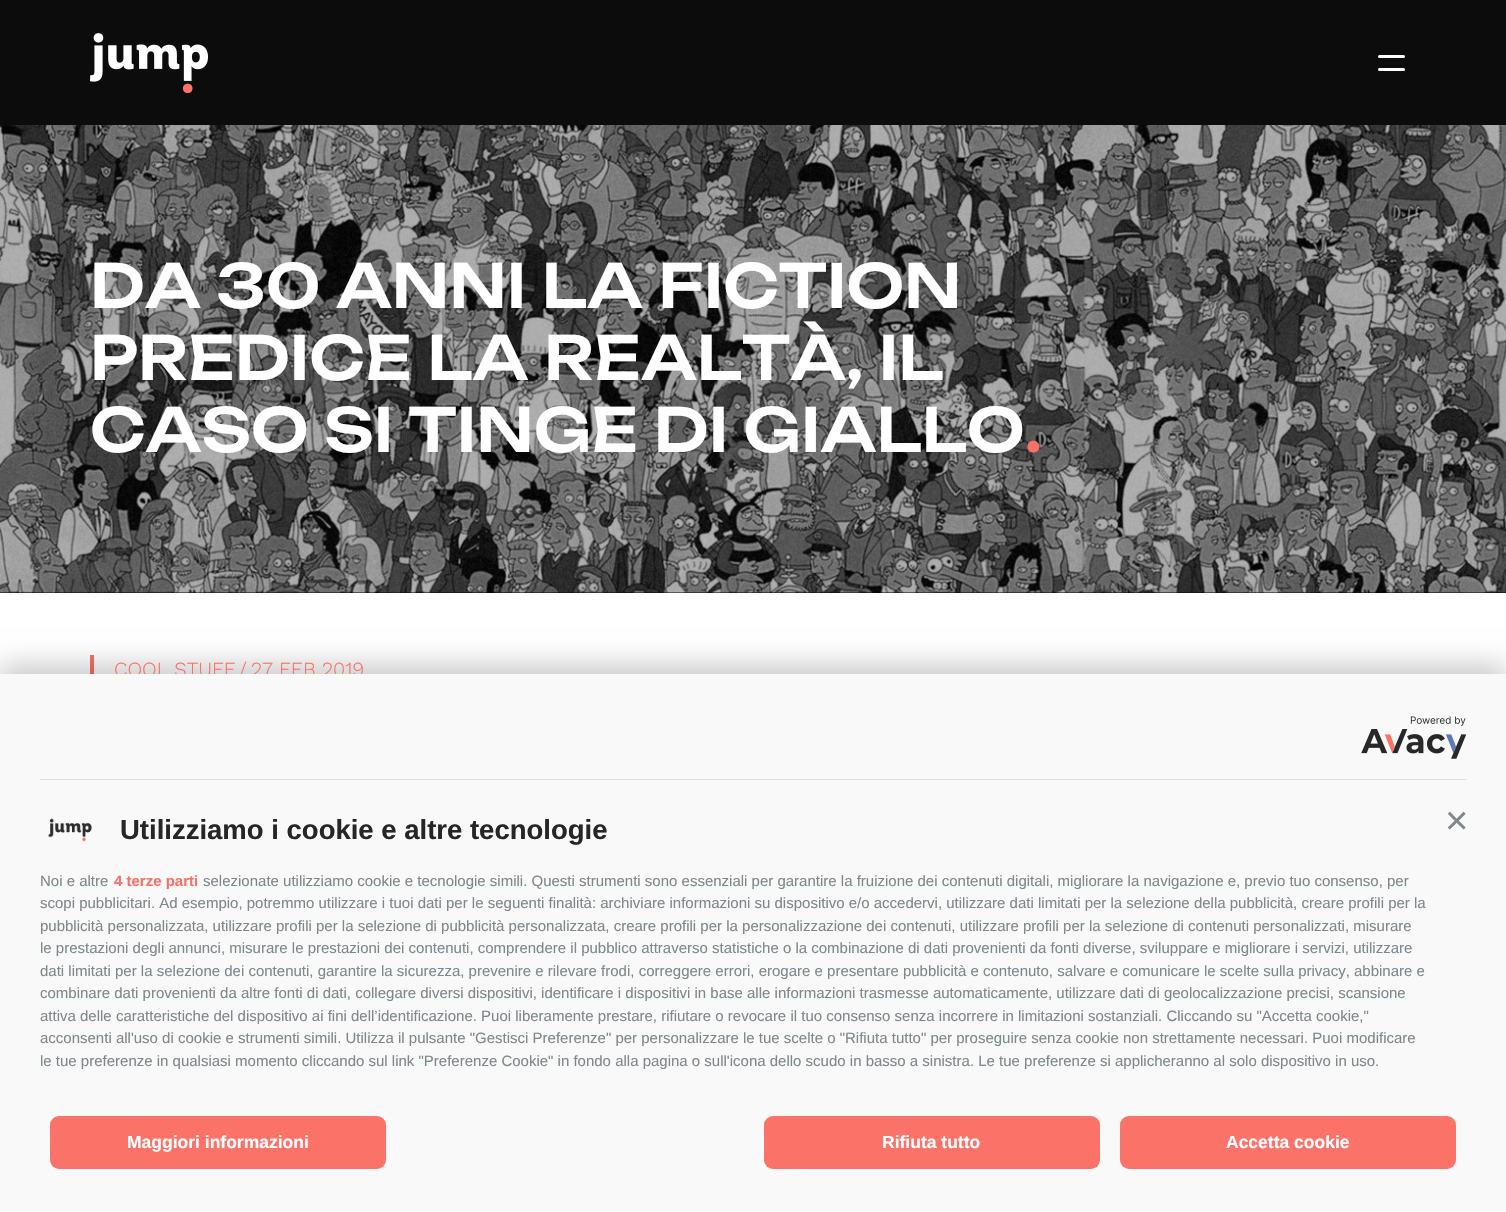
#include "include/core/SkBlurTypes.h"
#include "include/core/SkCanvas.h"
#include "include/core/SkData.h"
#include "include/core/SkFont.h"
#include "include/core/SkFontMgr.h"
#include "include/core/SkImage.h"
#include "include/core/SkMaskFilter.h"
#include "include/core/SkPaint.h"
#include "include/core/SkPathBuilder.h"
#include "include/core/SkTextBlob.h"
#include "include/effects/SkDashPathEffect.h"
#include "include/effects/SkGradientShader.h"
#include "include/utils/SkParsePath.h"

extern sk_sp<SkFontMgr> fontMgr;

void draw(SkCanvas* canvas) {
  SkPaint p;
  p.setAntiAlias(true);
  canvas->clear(SkColorSetRGB(12, 12, 12));
  p.setColor(SkColorSetRGB(8, 8, 8));
  canvas->drawRect(SkRect::MakeLTRB(0, 592, 1506, 593), p);
  canvas->drawImageRect(SkImages::DeferredFromEncodedData(SkData::MakeFromFileName("images/1.png")), SkRect::MakeLTRB(90, 33, 208, 94), SkSamplingOptions());
  p.setColor(SK_ColorWHITE);
  canvas->drawRoundRect(SkRect::MakeLTRB(1378, 55, 1405, 58), 1.5f, 1.5f, p);
  canvas->drawRoundRect(SkRect::MakeLTRB(1378, 68, 1405, 71), 1.5f, 1.5f, p);
  canvas->drawImageRect(SkImages::DeferredFromEncodedData(SkData::MakeFromFileName("images/2.png")), SkRect::MakeLTRB(0, 125, 1506, 593), SkSamplingOptions());
  canvas->drawRect(SkRect::MakeLTRB(0, 593, 1506, 674), p);
  p.setColor(SkColorSetRGB(250, 112, 102));
  canvas->drawRect(SkRect::MakeLTRB(90, 655, 94, 674), p);
  p.setColor(SkColorSetARGB(51, 0, 0, 0));
  p.setMaskFilter(SkMaskFilter::MakeBlur(kNormal_SkBlurStyle, 12.5f));
  canvas->drawRect(SkRect::MakeLTRB(0, 664, 1506, 1203), p);
  p.setMaskFilter(nullptr);
  SkFont font1(fontMgr->matchFamilyStyle("Unbounded", SkFontStyle(500, SkFontStyle::kNormal_Width, SkFontStyle::kUpright_Slant)), 60.25f);
  font1.setSubpixel(true);
  p.setColor(SK_ColorWHITE);
  canvas->drawString("DA 30 ANNI LA FICTION", 90, 308, font1, p);
  canvas->drawString("PREDICE LA REALTÀ, IL", 90, 380, font1, p);
  canvas->drawString("CASO SI TINGE DI GIALLO", 90, 452, font1, p);
  p.setColor(SkColorSetRGB(250, 112, 102));
  canvas->drawString(".", 1025, 452, font1, p);
  SkFont font2(fontMgr->matchFamilyStyle("Work Sans", SkFontStyle(300, SkFontStyle::kNormal_Width, SkFontStyle::kUpright_Slant)), 20);
  font2.setSubpixel(true);
  canvas->drawString("COOL STUFF", 114, 676, font2, p);
  canvas->drawString("/", 239, 676, font2, p);
  canvas->drawString("27 FEB 2019", 251, 676, font2, p);
  p.setColor(SkColorSetRGB(249, 249, 249));
  canvas->drawRect(SkRect::MakeLTRB(0, 674, 1506, 1212), p);
  p.setColor(SkColorSetRGB(222, 222, 222));
  canvas->drawRect(SkRect::MakeLTRB(40, 779, 1466, 780), p);
  canvas->drawImageRect(SkImages::DeferredFromEncodedData(SkData::MakeFromFileName("images/3.png")), SkRect::MakeLTRB(1361, 716, 1466, 759), SkSamplingOptions());
  canvas->drawImageRect(SkImages::DeferredFromEncodedData(SkData::MakeFromFileName("images/4.png")), SkRect::MakeLTRB(48, 818, 92, 842), SkSamplingOptions());
  SkFont font3(fontMgr->matchFamilyStyle("Liberation Sans", SkFontStyle::Bold()), 27.5f);
  font3.setSubpixel(true);
  p.setColor(SkColorSetRGB(38, 38, 40));
  canvas->drawString("Utilizziamo i cookie e altre tecnologie", 120, 839, font3, p);
  SkFont font4(fontMgr->matchFamilyStyle("Liberation Sans", SkFontStyle::Normal()), 40);
  font4.setSubpixel(true);
  p.setColor(SkColorSetRGB(128, 136, 140));
  canvas->drawString("×", 1445, 834, font4, p);
  SkFont font5(fontMgr->matchFamilyStyle("Liberation Sans", SkFontStyle::Normal()), 15);
  font5.setSubpixel(true);
  canvas->drawString("Noi e altre", 40, 886, font5, p);
  SkFont font6(fontMgr->matchFamilyStyle("Liberation Sans", SkFontStyle::Bold()), 15);
  font6.setSubpixel(true);
  p.setColor(SkColorSetRGB(250, 112, 102));
  canvas->drawString("4 terze parti", 114, 886, font6, p);
  p.setColor(SkColorSetRGB(128, 136, 140));
  canvas->drawString("selezionate utilizziamo cookie e tecnologie simili. Questi strumenti sono essenziali per garantire la fruizione dei contenuti digitali, migliorare la navigazione e, previo tuo consenso, per", 203, 886, font5, p);
  canvas->drawString("scopi pubblicitari. Ad esempio, potremmo utilizzare i tuoi dati per le seguenti finalità: archiviare informazioni su dispositivo e/o accedervi, utilizzare dati limitati per la selezione della pubblicità, creare profili per la", 40, 908, font5, p);
  canvas->drawString("pubblicità personalizzata, utilizzare profili per la selezione di pubblicità personalizzata, creare profili per la personalizzazione dei contenuti, utilizzare profili per la selezione di contenuti personalizzati, misurare", 40, 931, font5, p);
  canvas->drawString("le prestazioni degli annunci, misurare le prestazioni dei contenuti, comprendere il pubblico attraverso statistiche o la combinazione di dati provenienti da fonti diverse, sviluppare e migliorare i servizi, utilizzare", 40, 953, font5, p);
  canvas->drawString("dati limitati per la selezione dei contenuti, garantire la sicurezza, prevenire e rilevare frodi, correggere errori, erogare e presentare pubblicità e contenuto, salvare e comunicare le scelte sulla privacy, abbinare e", 40, 976, font5, p);
  canvas->drawString("combinare dati provenienti da altre fonti di dati, collegare diversi dispositivi, identificare i dispositivi in base alle informazioni trasmesse automaticamente, utilizzare dati di geolocalizzazione precisi, scansione", 40, 998, font5, p);
  canvas->drawString("attiva delle caratteristiche del dispositivo ai fini dell’identificazione. Puoi liberamente prestare, rifiutare o revocare il tuo consenso senza incorrere in limitazioni sostanziali. Cliccando su \"Accetta cookie,\"", 40, 1021, font5, p);
  canvas->drawString("acconsenti all'uso di cookie e strumenti simili. Utilizza il pulsante \"Gestisci Preferenze\" per personalizzare le tue scelte o \"Rifiuta tutto\" per proseguire senza cookie non strettamente necessari. Puoi modificare", 40, 1043, font5, p);
  canvas->drawString("le tue preferenze in qualsiasi momento cliccando sul link \"Preferenze Cookie\" in fondo alla pagina o sull'icona dello scudo in basso a sinistra. Le tue preferenze si applicheranno al solo dispositivo in uso.", 40, 1066, font5, p);
  p.setColor(SkColorSetRGB(250, 114, 104));
  canvas->drawRoundRect(SkRect::MakeLTRB(50, 1116, 386, 1169), 9, 9, p);
  SkFont font7(fontMgr->matchFamilyStyle("Liberation Sans", SkFontStyle::Bold()), 17.5f);
  font7.setSubpixel(true);
  p.setColor(SK_ColorWHITE);
  canvas->drawString("Maggiori informazioni", 127, 1148, font7, p);
  p.setColor(SkColorSetRGB(250, 114, 104));
  canvas->drawRoundRect(SkRect::MakeLTRB(764, 1116, 1100, 1169), 9, 9, p);
  p.setColor(SK_ColorWHITE);
  canvas->drawString("Rifiuta tutto", 882, 1148, font7, p);
  p.setColor(SkColorSetRGB(250, 114, 104));
  canvas->drawRoundRect(SkRect::MakeLTRB(1120, 1116, 1456, 1169), 9, 9, p);
  p.setColor(SK_ColorWHITE);
  canvas->drawString("Accetta cookie", 1226, 1148, font7, p);
}
